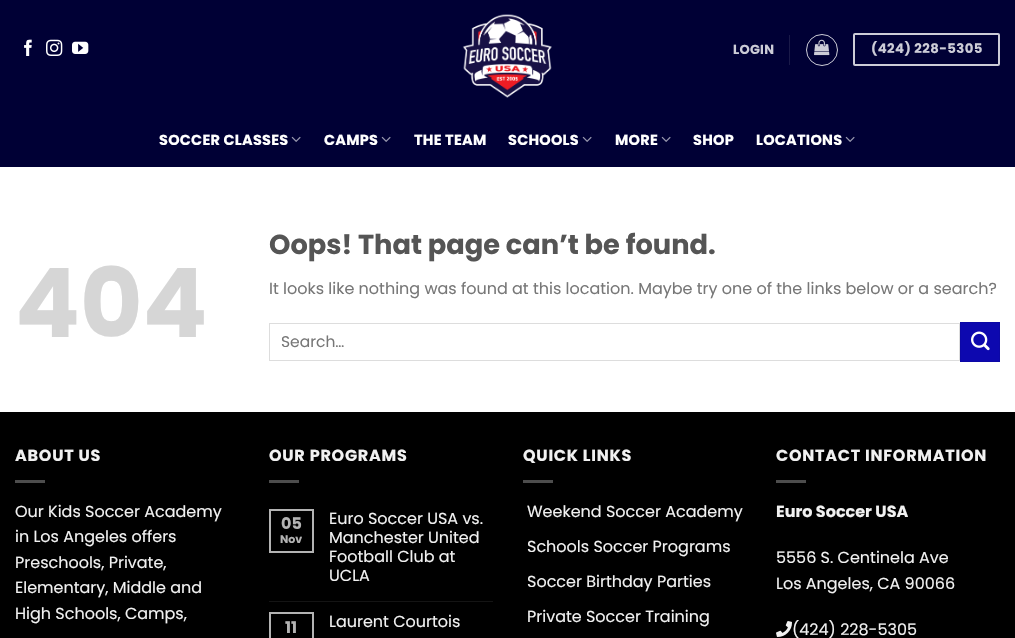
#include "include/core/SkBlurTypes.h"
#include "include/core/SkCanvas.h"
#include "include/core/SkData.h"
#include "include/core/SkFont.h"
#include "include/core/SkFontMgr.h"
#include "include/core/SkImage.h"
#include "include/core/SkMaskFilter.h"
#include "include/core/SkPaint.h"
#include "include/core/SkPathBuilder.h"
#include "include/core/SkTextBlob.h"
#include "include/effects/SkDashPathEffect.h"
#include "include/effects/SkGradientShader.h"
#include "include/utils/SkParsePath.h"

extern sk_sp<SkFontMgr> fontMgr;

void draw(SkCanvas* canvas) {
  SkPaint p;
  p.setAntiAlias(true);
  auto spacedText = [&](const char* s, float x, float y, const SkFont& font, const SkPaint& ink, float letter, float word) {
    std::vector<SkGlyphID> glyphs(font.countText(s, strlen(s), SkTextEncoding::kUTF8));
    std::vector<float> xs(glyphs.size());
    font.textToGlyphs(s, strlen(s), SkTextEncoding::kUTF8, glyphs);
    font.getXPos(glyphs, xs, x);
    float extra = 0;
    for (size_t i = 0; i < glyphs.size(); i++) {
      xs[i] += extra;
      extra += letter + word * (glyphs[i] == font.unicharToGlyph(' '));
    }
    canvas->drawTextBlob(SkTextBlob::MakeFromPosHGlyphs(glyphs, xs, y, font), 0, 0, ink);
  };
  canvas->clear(SK_ColorWHITE);
  p.setColor(SkColorSetRGB(0, 0, 53));
  canvas->drawRect(SkRect::MakeLTRB(0, 0, 1015, 167), p);
  canvas->drawImageRect(SkImages::DeferredFromEncodedData(SkData::MakeFromFileName("images/1.png")), SkRect::MakeLTRB(24, 39, 32, 56), SkSamplingOptions());
  canvas->drawImageRect(SkImages::DeferredFromEncodedData(SkData::MakeFromFileName("images/2.png")), SkRect::MakeLTRB(46, 39, 63, 56), SkSamplingOptions());
  canvas->drawImageRect(SkImages::DeferredFromEncodedData(SkData::MakeFromFileName("images/3.png")), SkRect::MakeLTRB(72, 41, 89, 54), SkSamplingOptions());
  canvas->drawImageRect(SkImages::DeferredFromEncodedData(SkData::MakeFromFileName("images/4.png")), SkRect::MakeLTRB(462, 14, 552, 98), SkSamplingOptions());
  p.setColor(SkColorSetRGB(26, 26, 73));
  canvas->drawRect(SkRect::MakeLTRB(789, 35, 790, 65), p);
  p.setStyle(SkPaint::kStroke_Style);
  p.setStrokeWidth(1);
  p.setColor(SkColorSetRGB(204, 204, 215));
  canvas->drawCircle(822, 50, 15.5f, p);
  canvas->drawImageRect(SkImages::DeferredFromEncodedData(SkData::MakeFromFileName("images/5.png")), SkRect::MakeLTRB(814, 39, 830, 56), SkSamplingOptions());
  p.setStrokeWidth(2);
  canvas->drawRoundRect(SkRect::MakeLTRB(854, 34, 999, 65), 1, 1, p);
  canvas->drawImageRect(SkImages::DeferredFromEncodedData(SkData::MakeFromFileName("images/6.png")), SkRect::MakeLTRB(291, 136, 301, 142), SkSamplingOptions());
  canvas->drawImageRect(SkImages::DeferredFromEncodedData(SkData::MakeFromFileName("images/6.png")), SkRect::MakeLTRB(381, 136, 391, 142), SkSamplingOptions());
  canvas->drawImageRect(SkImages::DeferredFromEncodedData(SkData::MakeFromFileName("images/6.png")), SkRect::MakeLTRB(582, 136, 592, 142), SkSamplingOptions());
  canvas->drawImageRect(SkImages::DeferredFromEncodedData(SkData::MakeFromFileName("images/6.png")), SkRect::MakeLTRB(661, 136, 671, 142), SkSamplingOptions());
  canvas->drawImageRect(SkImages::DeferredFromEncodedData(SkData::MakeFromFileName("images/6.png")), SkRect::MakeLTRB(845, 136, 855, 142), SkSamplingOptions());
  p.setStrokeWidth(1);
  p.setColor(SkColorSetRGB(221, 221, 221));
  canvas->drawRect(SkRect::MakeLTRB(269.5f, 323.5f, 959.5f, 360.5f), p);
  p.setStyle(SkPaint::kFill_Style);
  p.setColor(SkColorSetRGB(13, 8, 175));
  canvas->drawRect(SkRect::MakeLTRB(960.5f, 322.5f, 999.5f, 361.5f), p);
  p.setStyle(SkPaint::kStroke_Style);
  p.setColor(SkColorSetRGB(12, 8, 166));
  canvas->drawRect(SkRect::MakeLTRB(960.5f, 322.5f, 999.5f, 361.5f), p);
  canvas->drawImageRect(SkImages::DeferredFromEncodedData(SkData::MakeFromFileName("images/7.png")), SkRect::MakeLTRB(971, 331, 990, 351), SkSamplingOptions());
  p.setStyle(SkPaint::kFill_Style);
  p.setColor(SK_ColorBLACK);
  canvas->drawRect(SkRect::MakeLTRB(0, 412, 1015, 638), p);
  p.setColor(SkColorSetRGB(77, 77, 77));
  canvas->drawRect(SkRect::MakeLTRB(15, 480, 45, 483), p);
  canvas->drawRect(SkRect::MakeLTRB(269, 480, 299, 483), p);
  p.setStyle(SkPaint::kStroke_Style);
  p.setStrokeWidth(2);
  p.setColor(SkColorSetRGB(179, 179, 179));
  canvas->drawRect(SkRect::MakeLTRB(270, 510, 313, 552), p);
  p.setStyle(SkPaint::kFill_Style);
  p.setColor(SkColorSetRGB(20, 20, 20));
  canvas->drawRect(SkRect::MakeLTRB(269, 601, 493, 602), p);
  p.setStyle(SkPaint::kStroke_Style);
  p.setColor(SkColorSetRGB(179, 179, 179));
  canvas->drawRect(SkRect::MakeLTRB(270, 613, 313, 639), p);
  p.setStyle(SkPaint::kFill_Style);
  p.setColor(SkColorSetRGB(77, 77, 77));
  canvas->drawRect(SkRect::MakeLTRB(523, 480, 553, 483), p);
  canvas->drawRect(SkRect::MakeLTRB(776, 480, 806, 483), p);
  canvas->drawImageRect(SkImages::DeferredFromEncodedData(SkData::MakeFromFileName("images/8.png")), SkRect::MakeLTRB(776, 621, 792, 637), SkSamplingOptions());
  SkFont font1(fontMgr->matchFamilyStyle("Poppins", SkFontStyle::Bold()), 13);
  font1.setSubpixel(true);
  p.setColor(SkColorSetRGB(204, 204, 215));
  spacedText("LOGIN", 733, 54, font1, p, 0.25f, 0);
  SkFont font2(fontMgr->matchFamilyStyle("Poppins", SkFontStyle::Bold()), 13.25f);
  font2.setSubpixel(true);
  spacedText("(424) 228-5305", 871, 53, font2, p, 0.4f, 0);
  SkFont font3(fontMgr->matchFamilyStyle("Poppins", SkFontStyle::Bold()), 14.5f);
  font3.setSubpixel(true);
  p.setColor(SK_ColorWHITE);
  spacedText("SOCCER CLASSES", 159, 145, font3, p, 0.25f, 0);
  spacedText("CAMPS", 324, 145, font3, p, 0.25f, 0);
  spacedText("THE TEAM", 414, 145, font3, p, 0.25f, 0);
  spacedText("SCHOOLS", 508, 145, font3, p, 0.25f, 0);
  spacedText("MORE", 615, 145, font3, p, 0.25f, 0);
  spacedText("SHOP", 693, 145, font3, p, 0.25f, 0);
  spacedText("LOCATIONS", 756, 145, font3, p, 0.25f, 0);
  SkFont font4(fontMgr->matchFamilyStyle("Poppins", SkFontStyle::Bold()), 96);
  font4.setSubpixel(true);
  p.setColor(SkColorSetRGB(214, 214, 214));
  canvas->drawString("404", 15, 337, font4, p);
  SkFont font5(fontMgr->matchFamilyStyle("Poppins", SkFontStyle::Bold()), 27.25f);
  font5.setSubpixel(true);
  p.setColor(SkColorSetRGB(85, 85, 85));
  canvas->drawString("Oops! That page can’t be found.", 269, 254, font5, p);
  SkFont font6(fontMgr->matchFamilyStyle("Poppins", SkFontStyle::Normal()), 16);
  font6.setSubpixel(true);
  p.setColor(SkColorSetRGB(119, 119, 119));
  canvas->drawString("It looks like nothing was found at this location. Maybe try one of the links below or a search?", 269, 294, font6, p);
  SkFont font7(fontMgr->matchFamilyStyle("Poppins", SkFontStyle::Normal()), 15.5f);
  font7.setSubpixel(true);
  canvas->drawString("Search…", 281, 347, font7, p);
  SkFont font8(fontMgr->matchFamilyStyle("Poppins", SkFontStyle::Bold()), 16);
  font8.setSubpixel(true);
  p.setColor(SkColorSetRGB(241, 241, 241));
  spacedText("ABOUT US", 15, 461, font8, p, 0.75f, 0);
  canvas->drawString("Our Kids Soccer Academy", 15, 517, font6, p);
  canvas->drawString("in Los Angeles offers", 15, 542, font6, p);
  canvas->drawString("Preschools, Private,", 15, 568, font6, p);
  canvas->drawString("Elementary, Middle and", 15, 593, font6, p);
  canvas->drawString("High Schools, Camps,", 15, 619, font6, p);
  spacedText("OUR PROGRAMS", 269, 461, font8, p, 0.75f, 0);
  p.setColor(SkColorSetRGB(179, 179, 179));
  canvas->drawString("05", 281, 529, font8, p);
  SkFont font9(fontMgr->matchFamilyStyle("Poppins", SkFontStyle::Bold()), 11);
  font9.setSubpixel(true);
  canvas->drawString("Nov", 280, 543, font9, p);
  p.setColor(SkColorSetRGB(241, 241, 241));
  canvas->drawString("Euro Soccer USA vs.", 329, 524, font6, p);
  canvas->drawString("Manchester United", 329, 543, font6, p);
  canvas->drawString("Football Club at", 329, 562, font6, p);
  canvas->drawString("UCLA", 329, 581, font6, p);
  p.setColor(SkColorSetRGB(179, 179, 179));
  canvas->drawString("11", 285, 633, font8, p);
  p.setColor(SkColorSetRGB(241, 241, 241));
  canvas->drawString("Laurent Courtois", 329, 627, font6, p);
  spacedText("QUICK LINKS", 523, 461, font8, p, 0.75f, 0);
  canvas->drawString("Weekend Soccer Academy", 527, 517, font6, p);
  canvas->drawString("Schools Soccer Programs", 527, 552, font6, p);
  canvas->drawString("Soccer Birthday Parties", 527, 587, font6, p);
  canvas->drawString("Private Soccer Training", 527, 622, font6, p);
  spacedText("CONTACT INFORMATION", 776, 461, font8, p, 0.75f, 0);
  canvas->drawString("Euro Soccer USA", 776, 517, font8, p);
  canvas->drawString("5556 S. Centinela Ave", 776, 563, font6, p);
  canvas->drawString("Los Angeles, CA 90066", 776, 589, font6, p);
  canvas->drawString("(424) 228-5305", 792, 635, font6, p);
}
